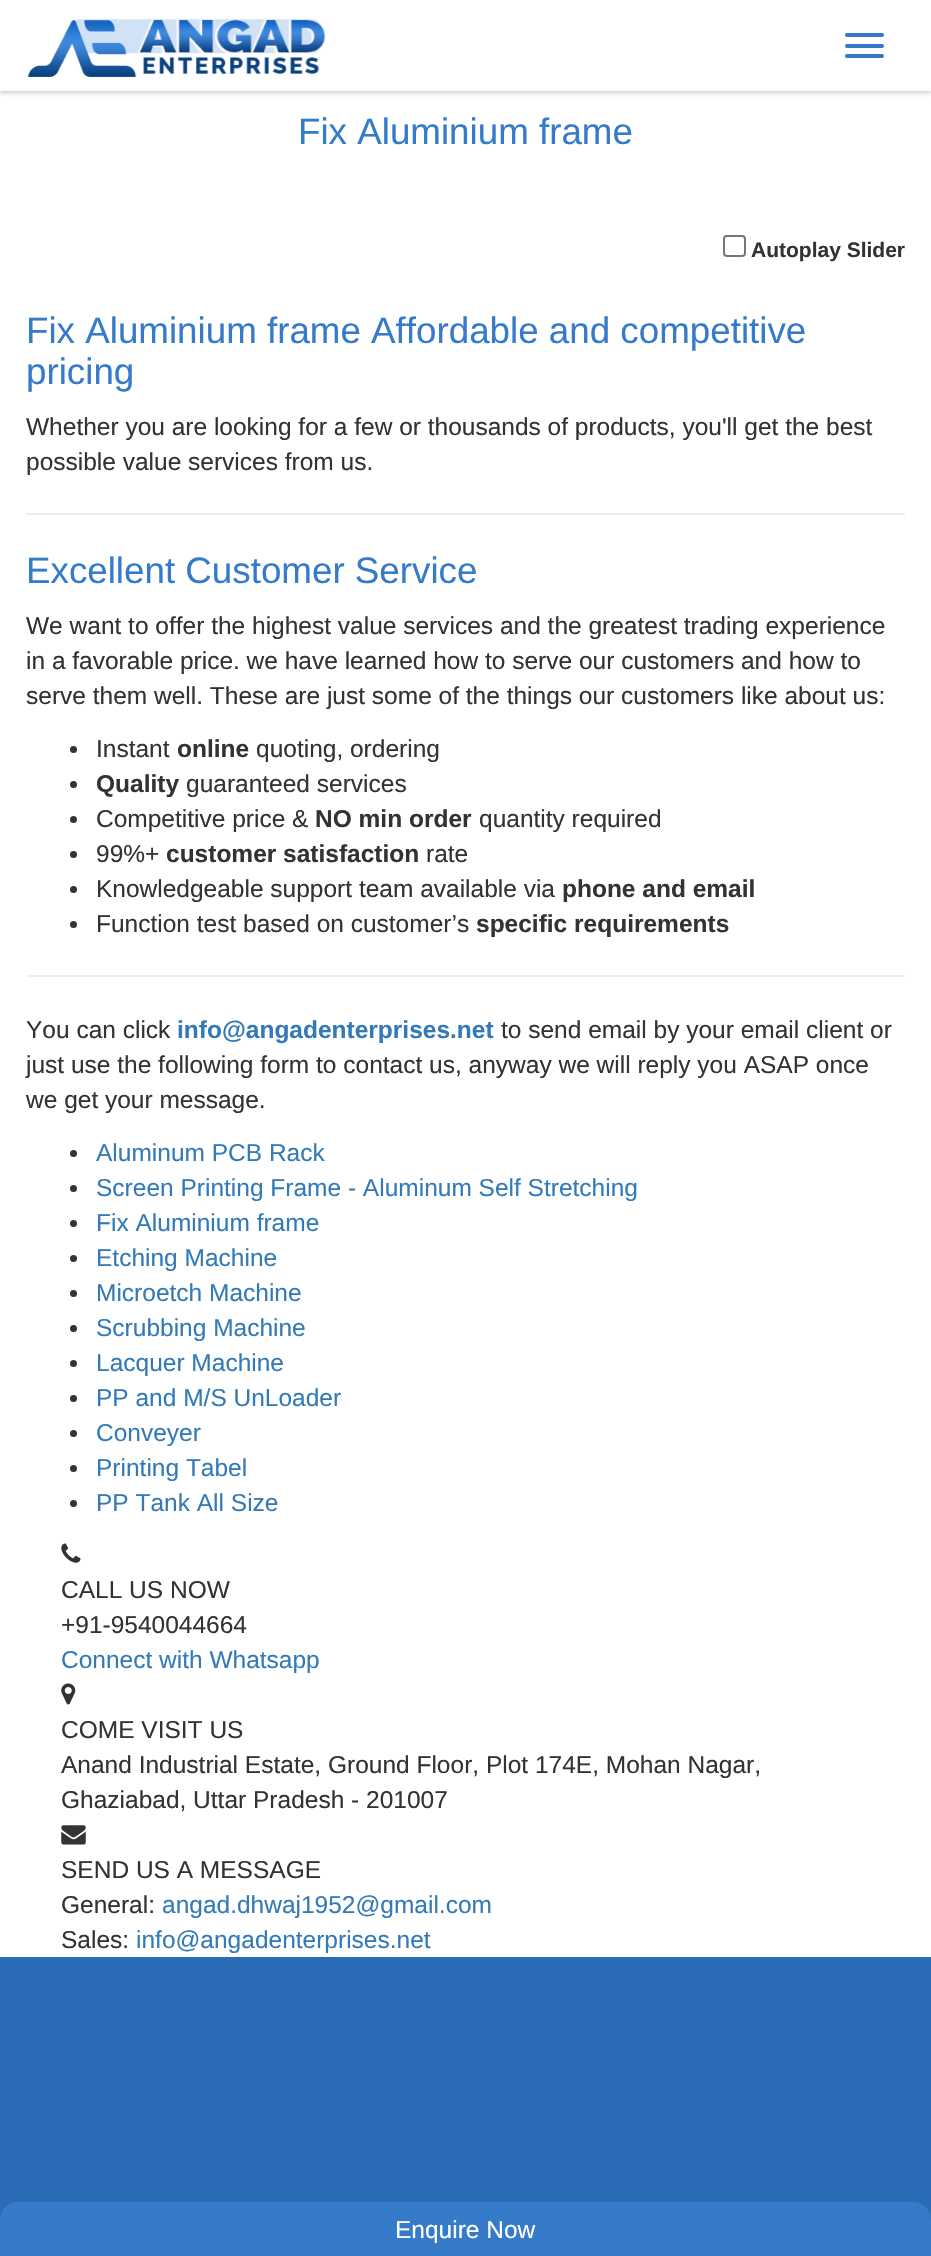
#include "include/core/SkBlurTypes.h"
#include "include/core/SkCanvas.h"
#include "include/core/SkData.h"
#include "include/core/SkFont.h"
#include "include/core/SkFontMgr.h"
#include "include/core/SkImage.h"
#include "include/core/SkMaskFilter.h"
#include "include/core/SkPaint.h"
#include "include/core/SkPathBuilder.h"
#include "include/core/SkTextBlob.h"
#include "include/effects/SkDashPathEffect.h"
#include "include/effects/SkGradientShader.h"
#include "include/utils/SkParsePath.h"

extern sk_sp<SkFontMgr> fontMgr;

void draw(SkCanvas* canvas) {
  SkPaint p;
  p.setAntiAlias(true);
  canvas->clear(SK_ColorWHITE);
  p.setColor(SkColorSetARGB(51, 0, 0, 0));
  p.setMaskFilter(SkMaskFilter::MakeBlur(kNormal_SkBlurStyle, 2));
  canvas->drawRect(SkRect::MakeLTRB(0, 2, 931, 93), p);
  p.setMaskFilter(nullptr);
  p.setColor(SK_ColorWHITE);
  canvas->drawRect(SkRect::MakeLTRB(0, 0, 931, 91), p);
  canvas->drawImageRect(SkImages::DeferredFromEncodedData(SkData::MakeFromFileName("images/1.png")), SkRect::MakeLTRB(28, 19, 326, 77), SkSamplingOptions());
  p.setColor(SkColorSetRGB(53, 121, 198));
  canvas->drawRoundRect(SkRect::MakeLTRB(845, 33, 884, 37), 2, 2, p);
  canvas->drawRoundRect(SkRect::MakeLTRB(845, 44, 884, 48), 2, 2, p);
  canvas->drawRoundRect(SkRect::MakeLTRB(845, 54, 884, 58), 2, 2, p);
  p.setStyle(SkPaint::kStroke_Style);
  p.setStrokeWidth(2);
  p.setColor(SkColorSetRGB(118, 118, 118));
  canvas->drawRoundRect(SkRect::MakeLTRB(724, 236, 745, 256), 3, 3, p);
  p.setStyle(SkPaint::kFill_Style);
  p.setColor(SkColorSetRGB(238, 238, 238));
  canvas->drawRect(SkRect::MakeLTRB(26, 513, 905, 515), p);
  p.setColor(SkColorSetRGB(51, 51, 51));
  canvas->drawCircle(73.5f, 749.5f, 3.5f, p);
  canvas->drawCircle(73.5f, 784.5f, 3.5f, p);
  canvas->drawCircle(73.5f, 819.5f, 3.5f, p);
  canvas->drawCircle(73.5f, 854.5f, 3.5f, p);
  canvas->drawCircle(73.5f, 889.5f, 3.5f, p);
  canvas->drawCircle(73.5f, 924.5f, 3.5f, p);
  p.setColor(SkColorSetRGB(238, 238, 238));
  canvas->drawRect(SkRect::MakeLTRB(26, 975, 905, 977), p);
  p.setColor(SkColorSetRGB(43, 108, 183));
  canvas->drawRect(SkRect::MakeLTRB(0, 1957, 931, 2220), p);
  p.setColor(SkColorSetRGB(54, 123, 202));
  canvas->drawPath(SkPathBuilder().moveTo(18, 2202).lineTo(913, 2202).cubicTo(923, 2202, 931, 2210, 931, 2220).lineTo(931, 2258).lineTo(0, 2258).lineTo(0, 2220).cubicTo(0, 2210, 8, 2202, 18, 2202).close().detach(), p);
  p.setColor(SkColorSetRGB(51, 51, 51));
  canvas->drawCircle(73.5f, 1153.5f, 3.5f, p);
  canvas->drawCircle(73.5f, 1188.5f, 3.5f, p);
  canvas->drawCircle(73.5f, 1223.5f, 3.5f, p);
  canvas->drawCircle(73.5f, 1258.5f, 3.5f, p);
  canvas->drawCircle(73.5f, 1293.5f, 3.5f, p);
  canvas->drawCircle(73.5f, 1328.5f, 3.5f, p);
  canvas->drawCircle(73.5f, 1363.5f, 3.5f, p);
  canvas->drawCircle(73.5f, 1398.5f, 3.5f, p);
  canvas->drawCircle(73.5f, 1433.5f, 3.5f, p);
  canvas->drawCircle(73.5f, 1468.5f, 3.5f, p);
  canvas->drawCircle(73.5f, 1503.5f, 3.5f, p);
  canvas->drawImageRect(SkImages::DeferredFromEncodedData(SkData::MakeFromFileName("images/2.png")), SkRect::MakeLTRB(61, 1543, 81, 1563), SkSamplingOptions());
  canvas->drawImageRect(SkImages::DeferredFromEncodedData(SkData::MakeFromFileName("images/3.png")), SkRect::MakeLTRB(61, 1683, 76, 1705), SkSamplingOptions());
  canvas->drawImageRect(SkImages::DeferredFromEncodedData(SkData::MakeFromFileName("images/4.png")), SkRect::MakeLTRB(61, 1825, 86, 1845), SkSamplingOptions());
  SkFont font1(fontMgr->matchFamilyStyle("Liberation Sans", SkFontStyle::Normal()), 36.75f);
  font1.setSubpixel(true);
  p.setColor(SkColorSetRGB(54, 123, 202));
  canvas->drawString("Fix Aluminium frame", 298, 144, font1, p);
  SkFont font2(fontMgr->matchFamilyStyle("Liberation Sans", SkFontStyle::Bold()), 21);
  font2.setSubpixel(true);
  p.setColor(SkColorSetRGB(51, 51, 51));
  canvas->drawString("Autoplay Slider", 751, 257, font2, p);
  p.setColor(SkColorSetRGB(54, 123, 202));
  canvas->drawString("Fix Aluminium frame Affordable and competitive", 26, 343, font1, p);
  canvas->drawString("pricing", 26, 384, font1, p);
  SkFont font3(fontMgr->matchFamilyStyle("Liberation Sans", SkFontStyle::Normal()), 24.5f);
  font3.setSubpixel(true);
  p.setColor(SkColorSetRGB(51, 51, 51));
  canvas->drawString("Whether you are looking for a few or thousands of products, you'll get the best", 26, 435, font3, p);
  canvas->drawString("possible value services from us.", 26, 470, font3, p);
  p.setColor(SkColorSetRGB(54, 123, 202));
  canvas->drawString("Excellent Customer Service", 26, 583, font1, p);
  p.setColor(SkColorSetRGB(51, 51, 51));
  canvas->drawString("We want to offer the highest value services and the greatest trading experience", 26, 634, font3, p);
  canvas->drawString("in a favorable price. we have learned how to serve our customers and how to", 26, 669, font3, p);
  canvas->drawString("serve them well. These are just some of the things our customers like about us:", 26, 704, font3, p);
  canvas->drawString("Instant", 96, 757, font3, p);
  SkFont font4(fontMgr->matchFamilyStyle("Liberation Sans", SkFontStyle::Bold()), 24.5f);
  font4.setSubpixel(true);
  canvas->drawString("online", 177, 757, font4, p);
  canvas->drawString("quoting, ordering", 256, 757, font3, p);
  canvas->drawString("Quality", 96, 792, font4, p);
  canvas->drawString("guaranteed services", 186, 792, font3, p);
  canvas->drawString("Competitive price &", 96, 827, font3, p);
  canvas->drawString("NO min order", 315, 827, font4, p);
  canvas->drawString("quantity required", 479, 827, font3, p);
  canvas->drawString("99%+", 96, 862, font3, p);
  canvas->drawString("customer satisfaction", 166, 862, font4, p);
  canvas->drawString("rate", 426, 862, font3, p);
  canvas->drawString("Knowledgeable support team available via", 96, 897, font3, p);
  canvas->drawString("phone and email", 562, 897, font4, p);
  canvas->drawString("Function test based on customer’s", 96, 932, font3, p);
  canvas->drawString("specific requirements", 476, 932, font4, p);
  canvas->drawString("You can click", 26, 1038, font3, p);
  p.setColor(SkColorSetRGB(51, 122, 183));
  canvas->drawString("info@angadenterprises.net", 177, 1038, font4, p);
  p.setColor(SkColorSetRGB(51, 51, 51));
  canvas->drawString("to send email by your email client or", 501, 1038, font3, p);
  canvas->drawString("just use the following form to contact us, anyway we will reply you ASAP once", 26, 1073, font3, p);
  canvas->drawString("we get your message.", 26, 1108, font3, p);
  p.setColor(SK_ColorWHITE);
  canvas->drawString("Enquire Now", 395, 2238, font3, p);
  p.setColor(SkColorSetRGB(51, 122, 183));
  canvas->drawString("Aluminum PCB Rack", 96, 1161, font3, p);
  canvas->drawString("Screen Printing Frame - Aluminum Self Stretching", 96, 1196, font3, p);
  canvas->drawString("Fix Aluminium frame", 96, 1231, font3, p);
  canvas->drawString("Etching Machine", 96, 1266, font3, p);
  canvas->drawString("Microetch Machine", 96, 1301, font3, p);
  canvas->drawString("Scrubbing Machine", 96, 1336, font3, p);
  canvas->drawString("Lacquer Machine", 96, 1371, font3, p);
  canvas->drawString("PP and M/S UnLoader", 96, 1406, font3, p);
  canvas->drawString("Conveyer", 96, 1441, font3, p);
  canvas->drawString("Printing Tabel", 96, 1476, font3, p);
  canvas->drawString("PP Tank All Size", 96, 1511, font3, p);
  p.setColor(SkColorSetRGB(51, 51, 51));
  canvas->drawString("CALL US NOW", 61, 1598, font3, p);
  canvas->drawString("+91-9540044664", 61, 1633, font3, p);
  p.setColor(SkColorSetRGB(51, 122, 183));
  canvas->drawString("Connect with Whatsapp", 61, 1668, font3, p);
  p.setColor(SkColorSetRGB(51, 51, 51));
  canvas->drawString("COME VISIT US", 61, 1738, font3, p);
  canvas->drawString("Anand Industrial Estate, Ground Floor, Plot 174E, Mohan Nagar,", 61, 1773, font3, p);
  canvas->drawString("Ghaziabad, Uttar Pradesh - 201007", 61, 1808, font3, p);
  canvas->drawString("SEND US A MESSAGE", 61, 1878, font3, p);
  canvas->drawString("General:", 61, 1913, font3, p);
  p.setColor(SkColorSetRGB(51, 122, 183));
  canvas->drawString("angad.dhwaj1952@gmail.com", 162, 1913, font3, p);
  p.setColor(SkColorSetRGB(51, 51, 51));
  canvas->drawString("Sales:", 61, 1948, font3, p);
  p.setColor(SkColorSetRGB(51, 122, 183));
  canvas->drawString("info@angadenterprises.net", 136, 1948, font3, p);
}
